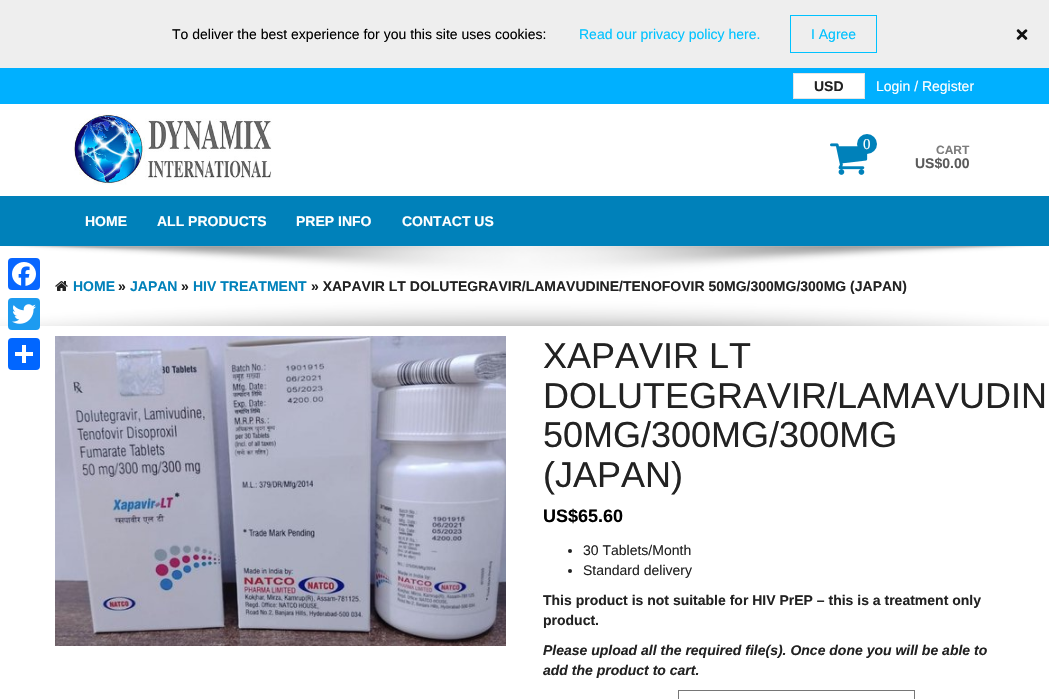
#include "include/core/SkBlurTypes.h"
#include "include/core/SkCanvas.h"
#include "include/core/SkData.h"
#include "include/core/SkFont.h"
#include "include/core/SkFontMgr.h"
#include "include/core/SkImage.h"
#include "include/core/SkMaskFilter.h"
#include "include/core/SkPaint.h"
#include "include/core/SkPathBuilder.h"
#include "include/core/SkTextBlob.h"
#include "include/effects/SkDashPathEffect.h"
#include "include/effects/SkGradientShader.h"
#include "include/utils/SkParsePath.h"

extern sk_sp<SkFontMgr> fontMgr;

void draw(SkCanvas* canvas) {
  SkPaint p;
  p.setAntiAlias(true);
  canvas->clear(SK_ColorWHITE);
  p.setColor(SkColorSetRGB(238, 238, 238));
  canvas->drawRect(SkRect::MakeLTRB(0, 0, 1049, 68), p);
  p.setStyle(SkPaint::kStroke_Style);
  p.setStrokeWidth(1);
  p.setColor(SkColorSetRGB(0, 194, 255));
  canvas->drawRect(SkRect::MakeLTRB(790.5f, 15.5f, 876.5f, 52.5f), p);
  p.setStyle(SkPaint::kFill_Style);
  p.setColor(SkColorSetRGB(17, 17, 17));
  canvas->drawPath(SkPathBuilder().moveTo(1019, 29.5f).lineTo(1025.5f, 36).cubicTo(1026.5f, 37, 1028.5f, 38.5f, 1026.5f, 39.5f).lineTo(1025.5f, 40).lineTo(1017, 31.5f).cubicTo(1016, 30, 1018, 28.5f, 1019, 29.5f).close().detach(), p);
  canvas->drawPath(SkPathBuilder().moveTo(1017, 37.5f).lineTo(1023.5f, 31).cubicTo(1024.5f, 30, 1026, 28, 1027, 30).lineTo(1027.5f, 31).lineTo(1019, 39.5f).cubicTo(1017.5f, 40.5f, 1016, 38.5f, 1017, 37.5f).close().detach(), p);
  p.setColor(SkColorSetRGB(0, 176, 255));
  canvas->drawRect(SkRect::MakeLTRB(0, 68, 1049, 104), p);
  p.setColor(SK_ColorWHITE);
  canvas->drawRect(SkRect::MakeLTRB(793.5f, 73.5f, 864.5f, 98.5f), p);
  p.setStyle(SkPaint::kStroke_Style);
  p.setColor(SkColorSetRGB(229, 229, 229));
  canvas->drawRect(SkRect::MakeLTRB(793.5f, 73.5f, 864.5f, 98.5f), p);
  canvas->drawImageRect(SkImages::DeferredFromEncodedData(SkData::MakeFromFileName("images/1.png")), SkRect::MakeLTRB(73, 114, 272, 185), SkSamplingOptions());
  canvas->drawImageRect(SkImages::DeferredFromEncodedData(SkData::MakeFromFileName("images/2.png")), SkRect::MakeLTRB(830, 143, 868, 175), SkSamplingOptions());
  p.setStyle(SkPaint::kFill_Style);
  p.setColor(SkColorSetRGB(0, 129, 186));
  canvas->drawCircle(867, 144, 10, p);
  canvas->drawRect(SkRect::MakeLTRB(0, 196, 1049, 246), p);
  canvas->drawImageRect(SkImages::DeferredFromEncodedData(SkData::MakeFromFileName("images/5.png")), SkRect::MakeLTRB(0, 246, 1049, 326), SkSamplingOptions());
  p.setColor(SkColorSetRGB(8, 102, 255));
  canvas->drawRoundRect(SkRect::MakeLTRB(8, 258, 40, 290), 4, 4, p);
  canvas->drawImageRect(SkImages::DeferredFromEncodedData(SkData::MakeFromFileName("images/3.png")), SkRect::MakeLTRB(12, 262, 36, 286), SkSamplingOptions());
  p.setColor(SkColorSetRGB(29, 155, 240));
  canvas->drawRoundRect(SkRect::MakeLTRB(8, 298, 40, 330), 4, 4, p);
  canvas->drawImageRect(SkImages::DeferredFromEncodedData(SkData::MakeFromFileName("images/4.png")), SkRect::MakeLTRB(12, 304, 36, 324), SkSamplingOptions());
  p.setColor(SkColorSetRGB(1, 102, 255));
  canvas->drawRoundRect(SkRect::MakeLTRB(8, 338, 40, 370), 4, 4, p);
  p.setColor(SK_ColorWHITE);
  canvas->drawRect(SkRect::MakeLTRB(22, 345, 26, 363), p);
  canvas->drawRect(SkRect::MakeLTRB(15, 352, 33, 356), p);
  canvas->drawImageRect(SkImages::DeferredFromEncodedData(SkData::MakeFromFileName("images/6.png")), SkRect::MakeLTRB(55, 281, 68, 291), SkSamplingOptions());
  canvas->drawImageRect(SkImages::DeferredFromEncodedData(SkData::MakeFromFileName("images/7.png")), SkRect::MakeLTRB(55, 336, 506, 646), SkSamplingOptions());
  p.setColor(SkColorSetRGB(34, 34, 34));
  canvas->drawCircle(570, 551, 2, p);
  canvas->drawCircle(570, 571, 2, p);
  p.setStyle(SkPaint::kStroke_Style);
  p.setColor(SkColorSetRGB(118, 118, 118));
  canvas->drawRect(SkRect::MakeLTRB(678.5f, 690.5f, 914.5f, 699.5f), p);
  SkFont font1(fontMgr->matchFamilyStyle("Liberation Sans", SkFontStyle::Normal()), 14);
  font1.setSubpixel(true);
  p.setStyle(SkPaint::kFill_Style);
  p.setColor(SK_ColorBLACK);
  canvas->drawString("To deliver the best experience for you this site uses cookies:", 172, 39, font1, p);
  p.setColor(SkColorSetRGB(0, 194, 255));
  canvas->drawString("Read our privacy policy here.", 579, 39, font1, p);
  canvas->drawString("I Agree", 811, 39, font1, p);
  SkFont font2(fontMgr->matchFamilyStyle("Liberation Sans", SkFontStyle::Bold()), 14);
  font2.setSubpixel(true);
  p.setColor(SkColorSetRGB(34, 34, 34));
  canvas->drawString("USD", 814, 91, font2, p);
  p.setColor(SK_ColorWHITE);
  canvas->drawString("Login / Register", 876, 91, font1, p);
  SkFont font3(fontMgr->matchFamilyStyle("Liberation Serif", SkFontStyle::Normal()), 15);
  font3.setSubpixel(true);
  canvas->drawString("0", 863, 149, font3, p);
  SkFont font4(fontMgr->matchFamilyStyle("Liberation Sans", SkFontStyle::Bold()), 12);
  font4.setSubpixel(true);
  p.setColor(SkColorSetRGB(124, 124, 124));
  canvas->drawString("CART", 936, 154, font4, p);
  p.setColor(SkColorSetRGB(91, 91, 91));
  canvas->drawString("US$0.00", 915, 168, font2, p);
  p.setColor(SK_ColorWHITE);
  canvas->drawString("HOME", 85, 226, font2, p);
  canvas->drawString("ALL PRODUCTS", 157, 226, font2, p);
  canvas->drawString("PREP INFO", 296, 226, font2, p);
  canvas->drawString("CONTACT US", 402, 226, font2, p);
  p.setColor(SkColorSetRGB(0, 129, 186));
  canvas->drawString("HOME", 73, 291, font2, p);
  p.setColor(SkColorSetRGB(34, 34, 34));
  canvas->drawString("»", 118, 291, font2, p);
  p.setColor(SkColorSetRGB(0, 129, 186));
  canvas->drawString("JAPAN", 130, 291, font2, p);
  p.setColor(SkColorSetRGB(34, 34, 34));
  canvas->drawString("»", 181, 291, font2, p);
  p.setColor(SkColorSetRGB(0, 129, 186));
  canvas->drawString("HIV TREATMENT", 193, 291, font2, p);
  p.setColor(SkColorSetRGB(34, 34, 34));
  canvas->drawString("» XAPAVIR LT DOLUTEGRAVIR/LAMAVUDINE/TENOFOVIR 50MG/300MG/300MG (JAPAN)", 311, 291, font2, p);
  SkFont font5(fontMgr->matchFamilyStyle("Liberation Sans", SkFontStyle::Normal()), 36);
  font5.setSubpixel(true);
  canvas->drawString("XAPAVIR LT", 543, 368, font5, p);
  canvas->drawString("DOLUTEGRAVIR/LAMAVUDIN", 543, 408, font5, p);
  canvas->drawString("50MG/300MG/300MG", 543, 447, font5, p);
  canvas->drawString("(JAPAN)", 543, 487, font5, p);
  SkFont font6(fontMgr->matchFamilyStyle("Liberation Sans", SkFontStyle::Bold()), 18);
  font6.setSubpixel(true);
  p.setColor(SK_ColorBLACK);
  canvas->drawString("US$65.60", 543, 522, font6, p);
  p.setColor(SkColorSetRGB(34, 34, 34));
  canvas->drawString("30 Tablets/Month", 583, 555, font1, p);
  canvas->drawString("Standard delivery", 583, 575, font1, p);
  canvas->drawString("This product is not suitable for HIV PrEP – this is a treatment only", 543, 605, font2, p);
  canvas->drawString("product.", 543, 625, font2, p);
  SkFont font7(fontMgr->matchFamilyStyle("Liberation Sans", SkFontStyle::BoldItalic()), 14);
  font7.setSubpixel(true);
  canvas->drawString("Please upload all the required file(s). Once done you will be able to", 543, 655, font7, p);
  canvas->drawString("add the product to cart.", 543, 675, font7, p);
}
